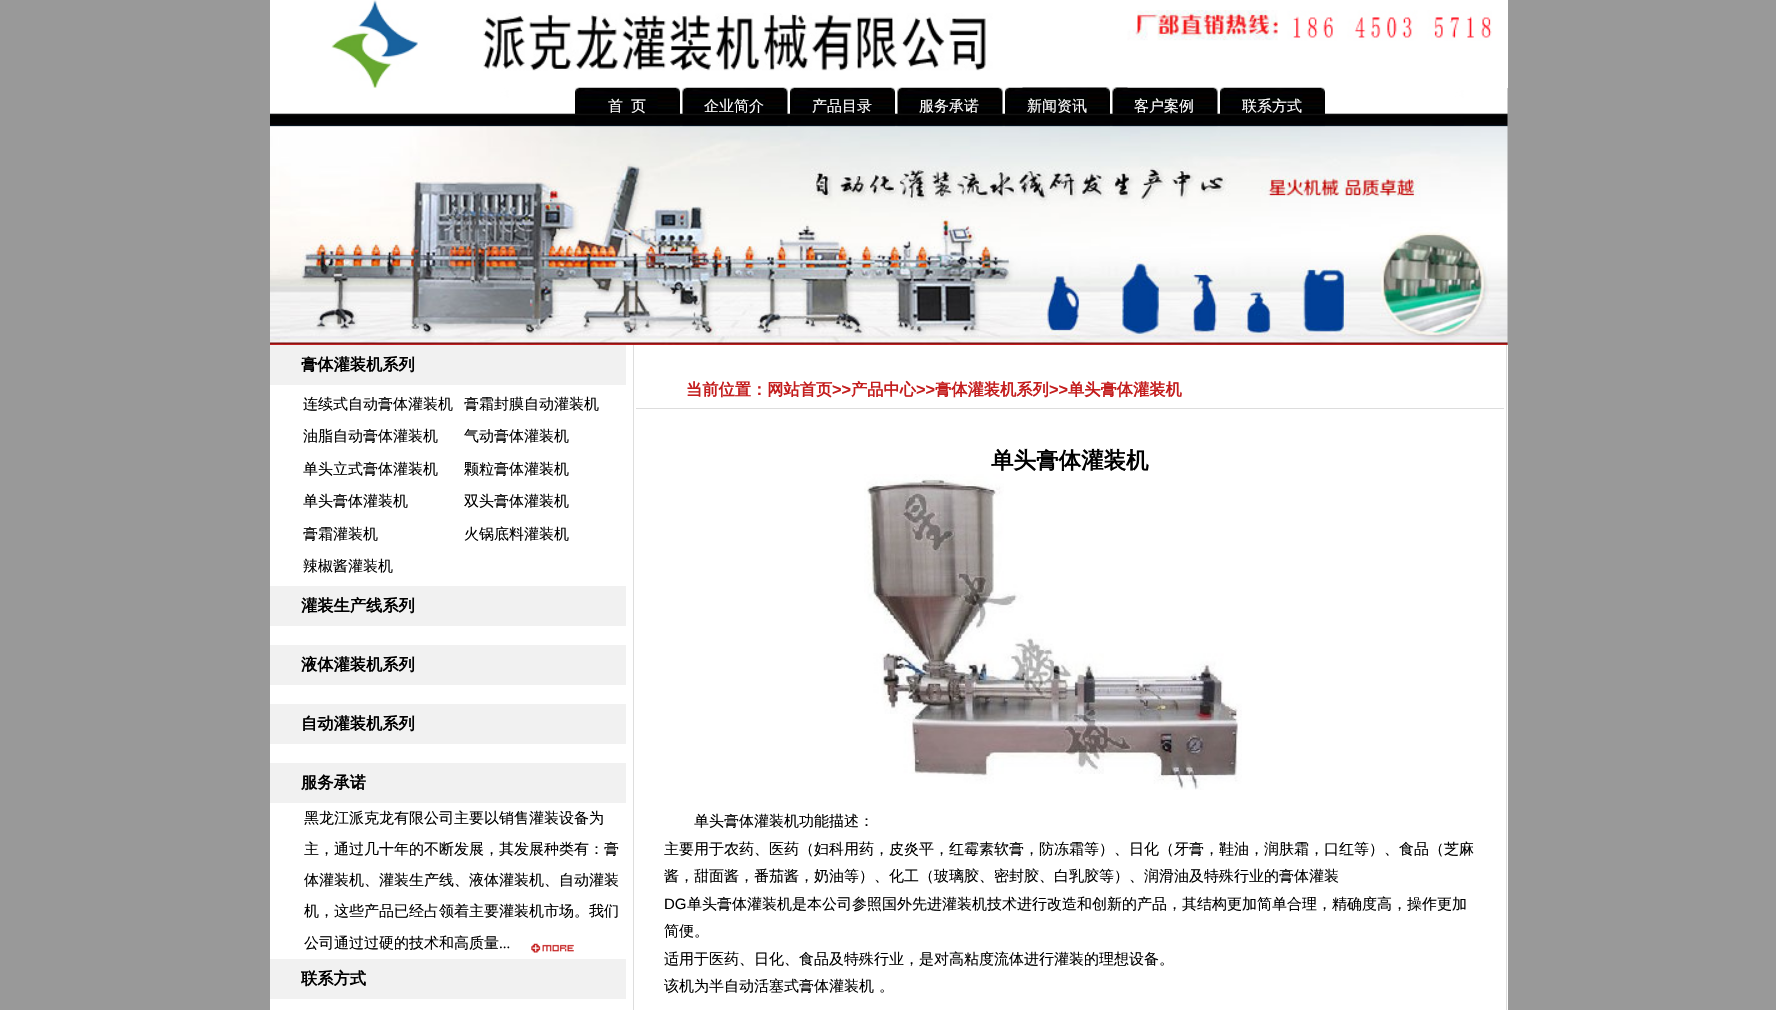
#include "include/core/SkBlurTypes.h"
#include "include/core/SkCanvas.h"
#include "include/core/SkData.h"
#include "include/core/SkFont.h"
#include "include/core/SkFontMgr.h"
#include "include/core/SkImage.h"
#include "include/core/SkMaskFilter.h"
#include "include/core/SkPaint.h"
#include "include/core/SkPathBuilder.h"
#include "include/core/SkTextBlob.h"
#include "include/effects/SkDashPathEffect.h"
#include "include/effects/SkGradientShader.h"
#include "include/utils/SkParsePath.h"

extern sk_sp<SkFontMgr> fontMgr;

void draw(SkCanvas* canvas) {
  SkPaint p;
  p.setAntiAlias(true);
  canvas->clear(SkColorSetRGB(153, 153, 153));
  p.setColor(SK_ColorWHITE);
  canvas->drawRect(SkRect::MakeLTRB(270, 0, 1508, 88), p);
  canvas->drawImageRect(SkImages::DeferredFromEncodedData(SkData::MakeFromFileName("images/1.png")), SkRect::MakeLTRB(331, 0, 418, 88), SkSamplingOptions());
  canvas->drawImageRect(SkImages::DeferredFromEncodedData(SkData::MakeFromFileName("images/4.png")), SkRect::MakeLTRB(270, 88, 1508, 127), SkSamplingOptions());
  canvas->drawImageRect(SkImages::DeferredFromEncodedData(SkData::MakeFromFileName("images/5.png")), SkRect::MakeLTRB(575, 87, 680, 127), SkSamplingOptions());
  canvas->drawImageRect(SkImages::DeferredFromEncodedData(SkData::MakeFromFileName("images/6.png")), SkRect::MakeLTRB(682, 87, 788, 127), SkSamplingOptions());
  canvas->drawImageRect(SkImages::DeferredFromEncodedData(SkData::MakeFromFileName("images/7.png")), SkRect::MakeLTRB(790, 87, 895, 127), SkSamplingOptions());
  canvas->drawImageRect(SkImages::DeferredFromEncodedData(SkData::MakeFromFileName("images/6.png")), SkRect::MakeLTRB(897, 87, 1003, 127), SkSamplingOptions());
  canvas->drawImageRect(SkImages::DeferredFromEncodedData(SkData::MakeFromFileName("images/8.png")), SkRect::MakeLTRB(1005, 87, 1110, 127), SkSamplingOptions());
  canvas->drawImageRect(SkImages::DeferredFromEncodedData(SkData::MakeFromFileName("images/2.png")), SkRect::MakeLTRB(483, 13, 1023, 88), SkSamplingOptions());
  canvas->drawImageRect(SkImages::DeferredFromEncodedData(SkData::MakeFromFileName("images/9.png")), SkRect::MakeLTRB(1112, 87, 1218, 127), SkSamplingOptions());
  canvas->drawImageRect(SkImages::DeferredFromEncodedData(SkData::MakeFromFileName("images/7.png")), SkRect::MakeLTRB(1220, 87, 1325, 127), SkSamplingOptions());
  canvas->drawImageRect(SkImages::DeferredFromEncodedData(SkData::MakeFromFileName("images/3.png")), SkRect::MakeLTRB(1127, 10, 1492, 88), SkSamplingOptions());
  canvas->drawImageRect(SkImages::DeferredFromEncodedData(SkData::MakeFromFileName("images/10.png")), SkRect::MakeLTRB(270, 126, 1508, 345), SkSamplingOptions());
  canvas->drawRect(SkRect::MakeLTRB(270, 345, 1508, 1010), p);
  p.setColor(SkColorSetRGB(241, 241, 241));
  canvas->drawRect(SkRect::MakeLTRB(270, 345, 626, 385), p);
  canvas->drawRect(SkRect::MakeLTRB(270, 586, 626, 626), p);
  canvas->drawRect(SkRect::MakeLTRB(270, 645, 626, 685), p);
  canvas->drawRect(SkRect::MakeLTRB(270, 704, 626, 744), p);
  canvas->drawRect(SkRect::MakeLTRB(270, 763, 626, 803), p);
  canvas->drawImageRect(SkImages::DeferredFromEncodedData(SkData::MakeFromFileName("images/11.png")), SkRect::MakeLTRB(531, 943, 574, 953), SkSamplingOptions());
  canvas->drawRect(SkRect::MakeLTRB(270, 959, 626, 999), p);
  p.setColor(SkColorSetRGB(221, 221, 221));
  canvas->drawRect(SkRect::MakeLTRB(1506, 345, 1507, 1010), p);
  canvas->drawRect(SkRect::MakeLTRB(633, 345, 634, 1010), p);
  canvas->drawRect(SkRect::MakeLTRB(636, 408, 1504, 409), p);
  canvas->drawImageRect(SkImages::DeferredFromEncodedData(SkData::MakeFromFileName("images/12.png")), SkRect::MakeLTRB(864, 474, 1242, 790), SkSamplingOptions());
  SkFont font1(fontMgr->matchFamilyStyle("WenQuanYi Zen Hei", SkFontStyle(500, SkFontStyle::kNormal_Width, SkFontStyle::kUpright_Slant)), 15);
  font1.setSubpixel(true);
  p.setColor(SK_ColorWHITE);
  canvas->drawString("首", 608, 111, font1, p);
  canvas->drawString("页", 631, 111, font1, p);
  canvas->drawString("企业简介", 704, 111, font1, p);
  canvas->drawString("产品目录", 812, 111, font1, p);
  canvas->drawString("服务承诺", 919, 111, font1, p);
  canvas->drawString("新闻资讯", 1027, 111, font1, p);
  canvas->drawString("客户案例", 1134, 111, font1, p);
  canvas->drawString("联系方式", 1242, 111, font1, p);
  SkFont font2(fontMgr->matchFamilyStyle("WenQuanYi Zen Hei", SkFontStyle::Bold()), 16.25f);
  font2.setSubpixel(true);
  p.setColor(SK_ColorBLACK);
  canvas->drawString("膏体灌装机系列", 301, 370, font2, p);
  canvas->drawString("连续式自动膏体灌装机", 303, 409, font1, p);
  canvas->drawString("膏霜封膜自动灌装机", 464, 409, font1, p);
  canvas->drawString("油脂自动膏体灌装机", 303, 441, font1, p);
  canvas->drawString("气动膏体灌装机", 464, 441, font1, p);
  canvas->drawString("单头立式膏体灌装机", 303, 474, font1, p);
  canvas->drawString("颗粒膏体灌装机", 464, 474, font1, p);
  canvas->drawString("单头膏体灌装机", 303, 506, font1, p);
  canvas->drawString("双头膏体灌装机", 464, 506, font1, p);
  canvas->drawString("膏霜灌装机", 303, 539, font1, p);
  canvas->drawString("火锅底料灌装机", 464, 539, font1, p);
  canvas->drawString("辣椒酱灌装机", 303, 571, font1, p);
  canvas->drawString("灌装生产线系列", 301, 611, font2, p);
  canvas->drawString("液体灌装机系列", 301, 670, font2, p);
  canvas->drawString("自动灌装机系列", 301, 729, font2, p);
  canvas->drawString("服务承诺", 301, 788, font2, p);
  canvas->drawString("黑龙江派克龙有限公司主要以销售灌装设备为", 304, 823, font1, p);
  canvas->drawString("主，通过几十年的不断发展，其发展种类有：膏", 304, 854, font1, p);
  canvas->drawString("体灌装机、灌装生产线、液体灌装机、自动灌装", 304, 885, font1, p);
  canvas->drawString("机，这些产品已经占领着主要灌装机市场。我们", 304, 916, font1, p);
  canvas->drawString("公司通过过硬的技术和高质量", 304, 948, font1, p);
  SkFont font3(fontMgr->matchFamilyStyle("Liberation Serif", SkFontStyle::Normal()), 15);
  font3.setSubpixel(true);
  canvas->drawString("...", 499, 948, font3, p);
  canvas->drawString("联系方式", 301, 984, font2, p);
  p.setColor(SkColorSetRGB(196, 30, 30));
  canvas->drawString("当前位置：网站首页", 686, 395, font2, p);
  SkFont font4(fontMgr->matchFamilyStyle("Liberation Sans", SkFontStyle::Bold()), 16.25f);
  font4.setSubpixel(true);
  canvas->drawString(">>", 832, 395, font4, p);
  canvas->drawString("产品中心", 851, 395, font2, p);
  canvas->drawString(">>", 916, 395, font4, p);
  canvas->drawString("膏体灌装机系列", 935, 395, font2, p);
  canvas->drawString(">>", 1049, 395, font4, p);
  canvas->drawString("单头膏体灌装机", 1068, 395, font2, p);
  SkFont font5(fontMgr->matchFamilyStyle("WenQuanYi Zen Hei", SkFontStyle::Bold()), 22.5f);
  font5.setSubpixel(true);
  p.setColor(SK_ColorBLACK);
  canvas->drawString("单头膏体灌装机", 991, 468, font5, p);
  canvas->drawString("单头膏体灌装机功能描述：", 694, 826, font1, p);
  canvas->drawString("主要用于农药、医药（妇科用药，皮炎平，红霉素软膏，防冻霜等）、日化（牙膏，鞋油，润肤霜，口红等）、食品（芝麻", 664, 854, font1, p);
  canvas->drawString("酱，甜面酱，番茄酱，奶油等）、化工（玻璃胶、密封胶、白乳胶等）、润滑油及特殊行业的膏体灌装", 664, 881, font1, p);
  SkFont font6(fontMgr->matchFamilyStyle("Liberation Sans", SkFontStyle::Normal()), 15);
  font6.setSubpixel(true);
  canvas->drawString("DG", 664, 909, font6, p);
  canvas->drawString("单头膏体灌装机是本公司参照国外先进灌装机技术进行改造和创新的产品，其结构更加简单合理，精确度高，操作更加", 687, 909, font1, p);
  canvas->drawString("简便。", 664, 936, font1, p);
  canvas->drawString("适用于医药、日化、食品及特殊行业，是对高粘度流体进行灌装的理想设备。", 664, 964, font1, p);
  canvas->drawString("该机为半自动活塞式膏体灌装机", 664, 991, font1, p);
  canvas->drawString("。", 879, 991, font1, p);
}
